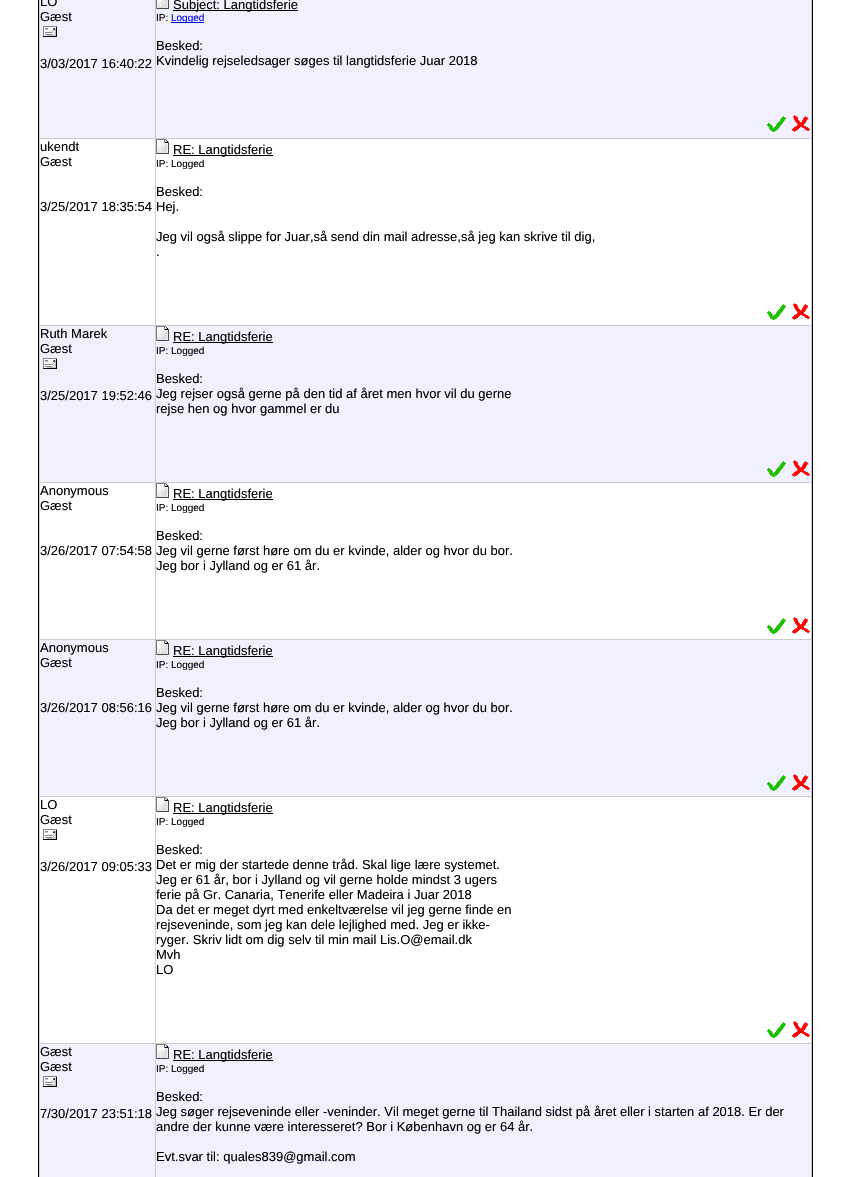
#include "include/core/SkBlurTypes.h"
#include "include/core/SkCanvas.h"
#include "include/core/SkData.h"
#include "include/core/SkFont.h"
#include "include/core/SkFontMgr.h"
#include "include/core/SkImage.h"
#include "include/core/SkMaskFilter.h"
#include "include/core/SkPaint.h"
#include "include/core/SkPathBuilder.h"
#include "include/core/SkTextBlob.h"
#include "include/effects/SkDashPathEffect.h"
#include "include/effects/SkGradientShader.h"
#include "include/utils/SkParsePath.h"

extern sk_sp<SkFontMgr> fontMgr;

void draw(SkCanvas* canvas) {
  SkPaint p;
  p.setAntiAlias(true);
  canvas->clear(SK_ColorWHITE);
  p.setColor(SK_ColorBLACK);
  canvas->drawRect(SkRect::MakeLTRB(38, 0, 813, 1177), p);
  p.setColor(SkColorSetRGB(204, 204, 204));
  canvas->drawRect(SkRect::MakeLTRB(39, 0, 812, 1177), p);
  p.setColor(SkColorSetRGB(240, 240, 255));
  canvas->drawRect(SkRect::MakeLTRB(40, 0, 155, 138), p);
  canvas->drawImageRect(SkImages::DeferredFromEncodedData(SkData::MakeFromFileName("images/1.png")), SkRect::MakeLTRB(43, 26, 57, 37), SkSamplingOptions());
  canvas->drawRect(SkRect::MakeLTRB(156, 0, 811, 138), p);
  canvas->drawImageRect(SkImages::DeferredFromEncodedData(SkData::MakeFromFileName("images/2.png")), SkRect::MakeLTRB(156, 0, 169, 9), SkSamplingOptions());
  p.setColor(SK_ColorBLACK);
  canvas->drawRect(SkRect::MakeLTRB(173, 10, 298, 11), p);
  p.setColor(SkColorSetRGB(0, 0, 238));
  canvas->drawRect(SkRect::MakeLTRB(171, 22, 204, 23), p);
  canvas->drawImageRect(SkImages::DeferredFromEncodedData(SkData::MakeFromFileName("images/3.png")), SkRect::MakeLTRB(767, 116, 786, 132), SkSamplingOptions());
  canvas->drawImageRect(SkImages::DeferredFromEncodedData(SkData::MakeFromFileName("images/4.png")), SkRect::MakeLTRB(792, 115, 810, 132), SkSamplingOptions());
  p.setColor(SK_ColorWHITE);
  canvas->drawRect(SkRect::MakeLTRB(40, 139, 155, 325), p);
  canvas->drawRect(SkRect::MakeLTRB(156, 139, 811, 325), p);
  canvas->drawImageRect(SkImages::DeferredFromEncodedData(SkData::MakeFromFileName("images/5.png")), SkRect::MakeLTRB(156, 139, 169, 154), SkSamplingOptions());
  p.setColor(SK_ColorBLACK);
  canvas->drawRect(SkRect::MakeLTRB(173, 155, 273, 156), p);
  canvas->drawImageRect(SkImages::DeferredFromEncodedData(SkData::MakeFromFileName("images/6.png")), SkRect::MakeLTRB(767, 304, 786, 320), SkSamplingOptions());
  canvas->drawImageRect(SkImages::DeferredFromEncodedData(SkData::MakeFromFileName("images/7.png")), SkRect::MakeLTRB(792, 303, 810, 320), SkSamplingOptions());
  p.setColor(SkColorSetRGB(240, 240, 255));
  canvas->drawRect(SkRect::MakeLTRB(40, 326, 155, 482), p);
  canvas->drawImageRect(SkImages::DeferredFromEncodedData(SkData::MakeFromFileName("images/1.png")), SkRect::MakeLTRB(43, 358, 57, 369), SkSamplingOptions());
  canvas->drawRect(SkRect::MakeLTRB(156, 326, 811, 482), p);
  canvas->drawImageRect(SkImages::DeferredFromEncodedData(SkData::MakeFromFileName("images/8.png")), SkRect::MakeLTRB(156, 326, 169, 341), SkSamplingOptions());
  p.setColor(SK_ColorBLACK);
  canvas->drawRect(SkRect::MakeLTRB(173, 342, 273, 343), p);
  canvas->drawImageRect(SkImages::DeferredFromEncodedData(SkData::MakeFromFileName("images/3.png")), SkRect::MakeLTRB(767, 461, 786, 477), SkSamplingOptions());
  canvas->drawImageRect(SkImages::DeferredFromEncodedData(SkData::MakeFromFileName("images/4.png")), SkRect::MakeLTRB(792, 460, 810, 477), SkSamplingOptions());
  p.setColor(SK_ColorWHITE);
  canvas->drawRect(SkRect::MakeLTRB(40, 483, 155, 639), p);
  canvas->drawRect(SkRect::MakeLTRB(156, 483, 811, 639), p);
  canvas->drawImageRect(SkImages::DeferredFromEncodedData(SkData::MakeFromFileName("images/5.png")), SkRect::MakeLTRB(156, 483, 169, 498), SkSamplingOptions());
  p.setColor(SK_ColorBLACK);
  canvas->drawRect(SkRect::MakeLTRB(173, 499, 273, 500), p);
  canvas->drawImageRect(SkImages::DeferredFromEncodedData(SkData::MakeFromFileName("images/6.png")), SkRect::MakeLTRB(767, 618, 786, 634), SkSamplingOptions());
  canvas->drawImageRect(SkImages::DeferredFromEncodedData(SkData::MakeFromFileName("images/7.png")), SkRect::MakeLTRB(792, 617, 810, 634), SkSamplingOptions());
  p.setColor(SkColorSetRGB(240, 240, 255));
  canvas->drawRect(SkRect::MakeLTRB(40, 640, 155, 796), p);
  canvas->drawRect(SkRect::MakeLTRB(156, 640, 811, 796), p);
  canvas->drawImageRect(SkImages::DeferredFromEncodedData(SkData::MakeFromFileName("images/8.png")), SkRect::MakeLTRB(156, 640, 169, 655), SkSamplingOptions());
  p.setColor(SK_ColorBLACK);
  canvas->drawRect(SkRect::MakeLTRB(173, 656, 273, 657), p);
  canvas->drawImageRect(SkImages::DeferredFromEncodedData(SkData::MakeFromFileName("images/3.png")), SkRect::MakeLTRB(767, 775, 786, 791), SkSamplingOptions());
  canvas->drawImageRect(SkImages::DeferredFromEncodedData(SkData::MakeFromFileName("images/4.png")), SkRect::MakeLTRB(792, 774, 810, 791), SkSamplingOptions());
  p.setColor(SK_ColorWHITE);
  canvas->drawRect(SkRect::MakeLTRB(40, 797, 155, 1043), p);
  canvas->drawImageRect(SkImages::DeferredFromEncodedData(SkData::MakeFromFileName("images/1.png")), SkRect::MakeLTRB(43, 829, 57, 840), SkSamplingOptions());
  canvas->drawRect(SkRect::MakeLTRB(156, 797, 811, 1043), p);
  canvas->drawImageRect(SkImages::DeferredFromEncodedData(SkData::MakeFromFileName("images/5.png")), SkRect::MakeLTRB(156, 797, 169, 812), SkSamplingOptions());
  p.setColor(SK_ColorBLACK);
  canvas->drawRect(SkRect::MakeLTRB(173, 813, 273, 814), p);
  canvas->drawImageRect(SkImages::DeferredFromEncodedData(SkData::MakeFromFileName("images/6.png")), SkRect::MakeLTRB(767, 1022, 786, 1038), SkSamplingOptions());
  canvas->drawImageRect(SkImages::DeferredFromEncodedData(SkData::MakeFromFileName("images/7.png")), SkRect::MakeLTRB(792, 1021, 810, 1038), SkSamplingOptions());
  p.setColor(SkColorSetRGB(240, 240, 255));
  canvas->drawRect(SkRect::MakeLTRB(40, 1044, 155, 1177), p);
  canvas->drawImageRect(SkImages::DeferredFromEncodedData(SkData::MakeFromFileName("images/1.png")), SkRect::MakeLTRB(43, 1076, 57, 1087), SkSamplingOptions());
  canvas->drawRect(SkRect::MakeLTRB(156, 1044, 811, 1177), p);
  canvas->drawImageRect(SkImages::DeferredFromEncodedData(SkData::MakeFromFileName("images/8.png")), SkRect::MakeLTRB(156, 1044, 169, 1059), SkSamplingOptions());
  p.setColor(SK_ColorBLACK);
  canvas->drawRect(SkRect::MakeLTRB(173, 1060, 273, 1061), p);
  SkFont font1(fontMgr->matchFamilyStyle("Liberation Sans", SkFontStyle::Normal()), 13);
  font1.setSubpixel(true);
  canvas->drawString("LO", 40, 6, font1, p);
  canvas->drawString("Gæst", 40, 21, font1, p);
  canvas->drawString("3/03/2017 16:40:22", 40, 68, font1, p);
  canvas->drawString("Subject: Langtidsferie", 173, 9, font1, p);
  SkFont font2(fontMgr->matchFamilyStyle("Liberation Sans", SkFontStyle::Normal()), 10);
  font2.setSubpixel(true);
  canvas->drawString("IP:", 156, 21, font2, p);
  p.setColor(SkColorSetRGB(0, 0, 238));
  canvas->drawString("Logged", 171, 21, font2, p);
  p.setColor(SK_ColorBLACK);
  canvas->drawString("Besked:", 156, 50, font1, p);
  canvas->drawString("Kvindelig rejseledsager søges til langtidsferie Juar 2018", 156, 65, font1, p);
  canvas->drawString("ukendt", 40, 151, font1, p);
  canvas->drawString("Gæst", 40, 166, font1, p);
  canvas->drawString("3/25/2017 18:35:54", 40, 211, font1, p);
  canvas->drawString("RE: Langtidsferie", 173, 154, font1, p);
  canvas->drawString("IP: Logged", 156, 167, font2, p);
  canvas->drawString("Besked:", 156, 196, font1, p);
  canvas->drawString("Hej.", 156, 211, font1, p);
  canvas->drawString("Jeg vil også slippe for Juar,så send din mail adresse,så jeg kan skrive til dig,", 156, 241, font1, p);
  canvas->drawString(".", 156, 256, font1, p);
  canvas->drawString("Ruth Marek", 40, 338, font1, p);
  canvas->drawString("Gæst", 40, 353, font1, p);
  canvas->drawString("3/25/2017 19:52:46", 40, 400, font1, p);
  canvas->drawString("RE: Langtidsferie", 173, 341, font1, p);
  canvas->drawString("IP: Logged", 156, 354, font2, p);
  canvas->drawString("Besked:", 156, 383, font1, p);
  canvas->drawString("Jeg rejser også gerne på den tid af året men hvor vil du gerne", 156, 398, font1, p);
  canvas->drawString("rejse hen og hvor gammel er du", 156, 413, font1, p);
  canvas->drawString("Anonymous", 40, 495, font1, p);
  canvas->drawString("Gæst", 40, 510, font1, p);
  canvas->drawString("3/26/2017 07:54:58", 40, 555, font1, p);
  canvas->drawString("RE: Langtidsferie", 173, 498, font1, p);
  canvas->drawString("IP: Logged", 156, 511, font2, p);
  canvas->drawString("Besked:", 156, 540, font1, p);
  canvas->drawString("Jeg vil gerne først høre om du er kvinde, alder og hvor du bor.", 156, 555, font1, p);
  canvas->drawString("Jeg bor i Jylland og er 61 år.", 156, 570, font1, p);
  canvas->drawString("Anonymous", 40, 652, font1, p);
  canvas->drawString("Gæst", 40, 667, font1, p);
  canvas->drawString("3/26/2017 08:56:16", 40, 712, font1, p);
  canvas->drawString("RE: Langtidsferie", 173, 655, font1, p);
  canvas->drawString("IP: Logged", 156, 668, font2, p);
  canvas->drawString("Besked:", 156, 697, font1, p);
  canvas->drawString("Jeg vil gerne først høre om du er kvinde, alder og hvor du bor.", 156, 712, font1, p);
  canvas->drawString("Jeg bor i Jylland og er 61 år.", 156, 727, font1, p);
  canvas->drawString("LO", 40, 809, font1, p);
  canvas->drawString("Gæst", 40, 824, font1, p);
  canvas->drawString("3/26/2017 09:05:33", 40, 871, font1, p);
  canvas->drawString("RE: Langtidsferie", 173, 812, font1, p);
  canvas->drawString("IP: Logged", 156, 825, font2, p);
  canvas->drawString("Besked:", 156, 854, font1, p);
  canvas->drawString("Det er mig der startede denne tråd. Skal lige lære systemet.", 156, 869, font1, p);
  canvas->drawString("Jeg er 61 år, bor i Jylland og vil gerne holde mindst 3 ugers", 156, 884, font1, p);
  canvas->drawString("ferie på Gr. Canaria, Tenerife eller Madeira i Juar 2018", 156, 899, font1, p);
  canvas->drawString("Da det er meget dyrt med enkeltværelse vil jeg gerne finde en", 156, 914, font1, p);
  canvas->drawString("rejseveninde, som jeg kan dele lejlighed med. Jeg er ikke-", 156, 929, font1, p);
  canvas->drawString("ryger. Skriv lidt om dig selv til min mail Lis.O@email.dk", 156, 944, font1, p);
  canvas->drawString("Mvh", 156, 959, font1, p);
  canvas->drawString("LO", 156, 974, font1, p);
  canvas->drawString("Gæst", 40, 1056, font1, p);
  canvas->drawString("Gæst", 40, 1071, font1, p);
  canvas->drawString("7/30/2017 23:51:18", 40, 1118, font1, p);
  canvas->drawString("RE: Langtidsferie", 173, 1059, font1, p);
  canvas->drawString("IP: Logged", 156, 1072, font2, p);
  canvas->drawString("Besked:", 156, 1101, font1, p);
  canvas->drawString("Jeg søger rejseveninde eller -veninder. Vil meget gerne til Thailand sidst på året eller i starten af 2018. Er der", 156, 1116, font1, p);
  canvas->drawString("andre der kunne være interesseret? Bor i København og er 64 år.", 156, 1131, font1, p);
  canvas->drawString("Evt.svar til: quales839@gmail.com", 156, 1161, font1, p);
}
